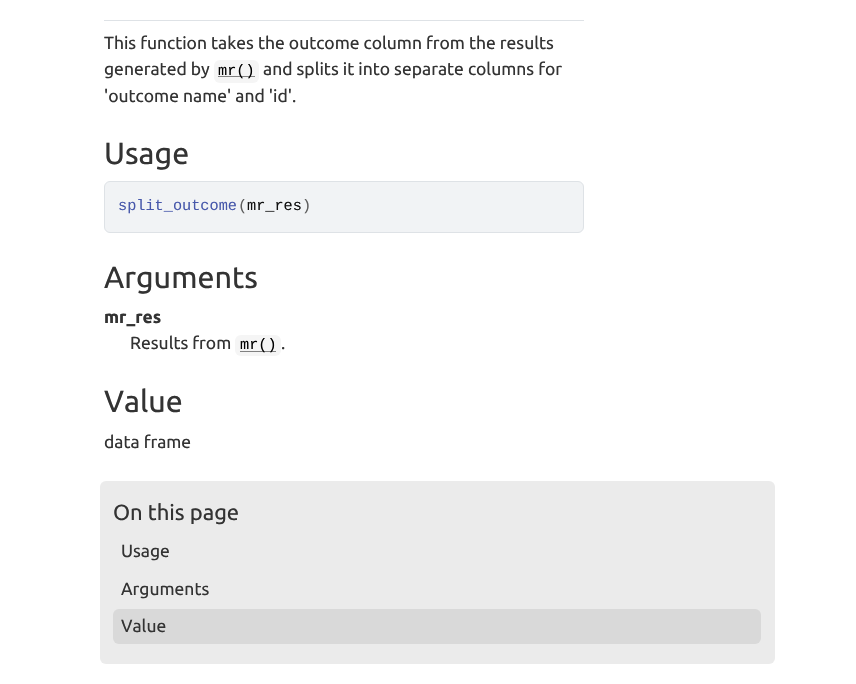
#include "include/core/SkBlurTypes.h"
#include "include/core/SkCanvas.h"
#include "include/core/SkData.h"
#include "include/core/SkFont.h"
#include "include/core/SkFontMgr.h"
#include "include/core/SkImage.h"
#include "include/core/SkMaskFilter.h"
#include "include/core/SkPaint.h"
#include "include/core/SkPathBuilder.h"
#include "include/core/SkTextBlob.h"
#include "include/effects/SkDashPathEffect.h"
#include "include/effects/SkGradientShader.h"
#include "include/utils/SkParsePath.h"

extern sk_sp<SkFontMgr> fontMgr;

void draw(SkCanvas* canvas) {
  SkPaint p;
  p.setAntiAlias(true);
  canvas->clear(SK_ColorWHITE);
  p.setColor(SkColorSetRGB(222, 226, 230));
  canvas->drawRect(SkRect::MakeLTRB(104, 20, 584, 21), p);
  p.setColor(SkColorSetRGB(245, 245, 245));
  canvas->drawRoundRect(SkRect::MakeLTRB(214, 60, 259, 83), 6, 6, p);
  p.setColor(SkColorSetRGB(129, 129, 129));
  canvas->drawRect(SkRect::MakeLTRB(218, 76, 255, 77), p);
  p.setColor(SkColorSetRGB(241, 243, 245));
  canvas->drawRoundRect(SkRect::MakeLTRB(104.5f, 181.5f, 583.5f, 232.5f), 5.5f, 5.5f, p);
  p.setStyle(SkPaint::kStroke_Style);
  p.setStrokeWidth(1);
  p.setColor(SkColorSetRGB(222, 226, 230));
  canvas->drawRoundRect(SkRect::MakeLTRB(104.5f, 181.5f, 583.5f, 232.5f), 5.5f, 5.5f, p);
  p.setStyle(SkPaint::kFill_Style);
  p.setColor(SkColorSetRGB(245, 245, 245));
  canvas->drawRoundRect(SkRect::MakeLTRB(235, 335, 281, 356), 6, 6, p);
  p.setColor(SkColorSetRGB(129, 129, 129));
  canvas->drawRect(SkRect::MakeLTRB(240, 351, 276, 352), p);
  p.setColor(SkColorSetRGB(235, 235, 235));
  canvas->drawRoundRect(SkRect::MakeLTRB(100, 481, 775, 664), 6, 6, p);
  p.setColor(SkColorSetRGB(217, 217, 217));
  canvas->drawRoundRect(SkRect::MakeLTRB(113, 609, 761, 644), 6, 6, p);
  SkFont font1(fontMgr->matchFamilyStyle("Ubuntu", SkFontStyle::Normal()), 17.5f);
  font1.setSubpixel(true);
  p.setColor(SkColorSetRGB(51, 51, 51));
  canvas->drawString("This function takes the outcome column from the results", 104, 49, font1, p);
  canvas->drawString("generated by", 104, 75, font1, p);
  SkFont font2(fontMgr->matchFamilyStyle("Liberation Mono", SkFontStyle::Normal()), 15.25f);
  font2.setSubpixel(true);
  p.setColor(SK_ColorBLACK);
  canvas->drawString("mr()", 218, 75, font2, p);
  p.setColor(SkColorSetRGB(51, 51, 51));
  canvas->drawString("and splits it into separate columns for", 263, 75, font1, p);
  canvas->drawString("'outcome name' and 'id'.", 104, 102, font1, p);
  SkFont font3(fontMgr->matchFamilyStyle("Ubuntu", SkFontStyle::Normal()), 30.5f);
  font3.setSubpixel(true);
  canvas->drawString("Usage", 104, 164, font3, p);
  p.setColor(SkColorSetRGB(71, 88, 171));
  canvas->drawString("split_outcome", 118, 210, font2, p);
  p.setColor(SkColorSetRGB(94, 94, 94));
  canvas->drawString("(", 238, 210, font2, p);
  p.setColor(SkColorSetRGB(17, 17, 17));
  canvas->drawString("mr_res", 247, 210, font2, p);
  p.setColor(SkColorSetRGB(94, 94, 94));
  canvas->drawString(")", 302, 210, font2, p);
  p.setColor(SkColorSetRGB(51, 51, 51));
  canvas->drawString("Arguments", 104, 288, font3, p);
  SkFont font4(fontMgr->matchFamilyStyle("Ubuntu", SkFontStyle::Bold()), 17.5f);
  font4.setSubpixel(true);
  canvas->drawString("mr_res", 104, 323, font4, p);
  canvas->drawString("Results from", 130, 349, font1, p);
  p.setColor(SK_ColorBLACK);
  canvas->drawString("mr()", 240, 349, font2, p);
  p.setColor(SkColorSetRGB(51, 51, 51));
  canvas->drawString(".", 281, 349, font1, p);
  canvas->drawString("Value", 104, 412, font3, p);
  canvas->drawString("data frame", 104, 448, font1, p);
  SkFont font5(fontMgr->matchFamilyStyle("Ubuntu", SkFontStyle::Normal()), 22);
  font5.setSubpixel(true);
  canvas->drawString("On this page", 113, 520, font5, p);
  canvas->drawString("Usage", 121, 557, font1, p);
  canvas->drawString("Arguments", 121, 595, font1, p);
  canvas->drawString("Value", 121, 632, font1, p);
}
